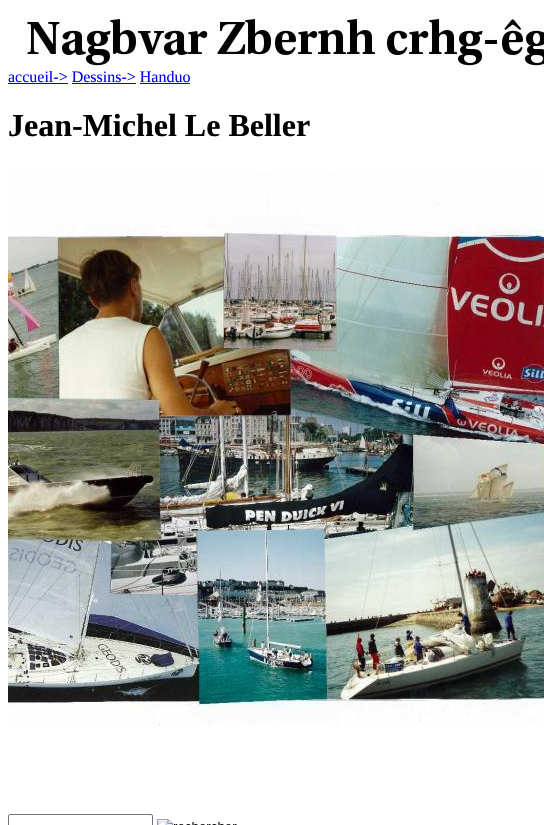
#include "include/core/SkBlurTypes.h"
#include "include/core/SkCanvas.h"
#include "include/core/SkData.h"
#include "include/core/SkFont.h"
#include "include/core/SkFontMgr.h"
#include "include/core/SkImage.h"
#include "include/core/SkMaskFilter.h"
#include "include/core/SkPaint.h"
#include "include/core/SkPathBuilder.h"
#include "include/core/SkTextBlob.h"
#include "include/effects/SkDashPathEffect.h"
#include "include/effects/SkGradientShader.h"
#include "include/utils/SkParsePath.h"

extern sk_sp<SkFontMgr> fontMgr;

void draw(SkCanvas* canvas) {
  SkPaint p;
  p.setAntiAlias(true);
  canvas->clear(SK_ColorWHITE);
  canvas->drawImageRect(SkImages::DeferredFromEncodedData(SkData::MakeFromFileName("images/1.png")), SkRect::MakeLTRB(24, 16, 544, 68), SkSamplingOptions());
  p.setColor(SkColorSetRGB(0, 0, 238));
  canvas->drawRect(SkRect::MakeLTRB(8, 83, 68, 84), p);
  canvas->drawRect(SkRect::MakeLTRB(72, 83, 136, 84), p);
  canvas->drawRect(SkRect::MakeLTRB(140, 83, 190, 84), p);
  canvas->drawImageRect(SkImages::DeferredFromEncodedData(SkData::MakeFromFileName("images/2.png")), SkRect::MakeLTRB(8, 172, 544, 726), SkSamplingOptions());
  p.setStyle(SkPaint::kStroke_Style);
  p.setStrokeWidth(1);
  p.setColor(SkColorSetRGB(118, 118, 118));
  canvas->drawRoundRect(SkRect::MakeLTRB(8.5f, 814.5f, 152.5f, 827.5f), 1.5f, 1.5f, p);
  canvas->drawImageRect(SkImages::DeferredFromEncodedData(SkData::MakeFromFileName("images/3.png")), SkRect::MakeLTRB(157, 819, 237, 825), SkSamplingOptions());
  SkFont font1(fontMgr->matchFamilyStyle("Liberation Serif", SkFontStyle::Normal()), 16);
  font1.setSubpixel(true);
  p.setStyle(SkPaint::kFill_Style);
  p.setColor(SkColorSetRGB(0, 0, 238));
  canvas->drawString("accueil-> Dessins-> Handuo", 8, 82, font1, p);
  SkFont font2(fontMgr->matchFamilyStyle("Liberation Serif", SkFontStyle::Bold()), 32);
  font2.setSubpixel(true);
  p.setColor(SK_ColorBLACK);
  canvas->drawString("Jean-Michel Le Beller", 8, 136, font2, p);
}
